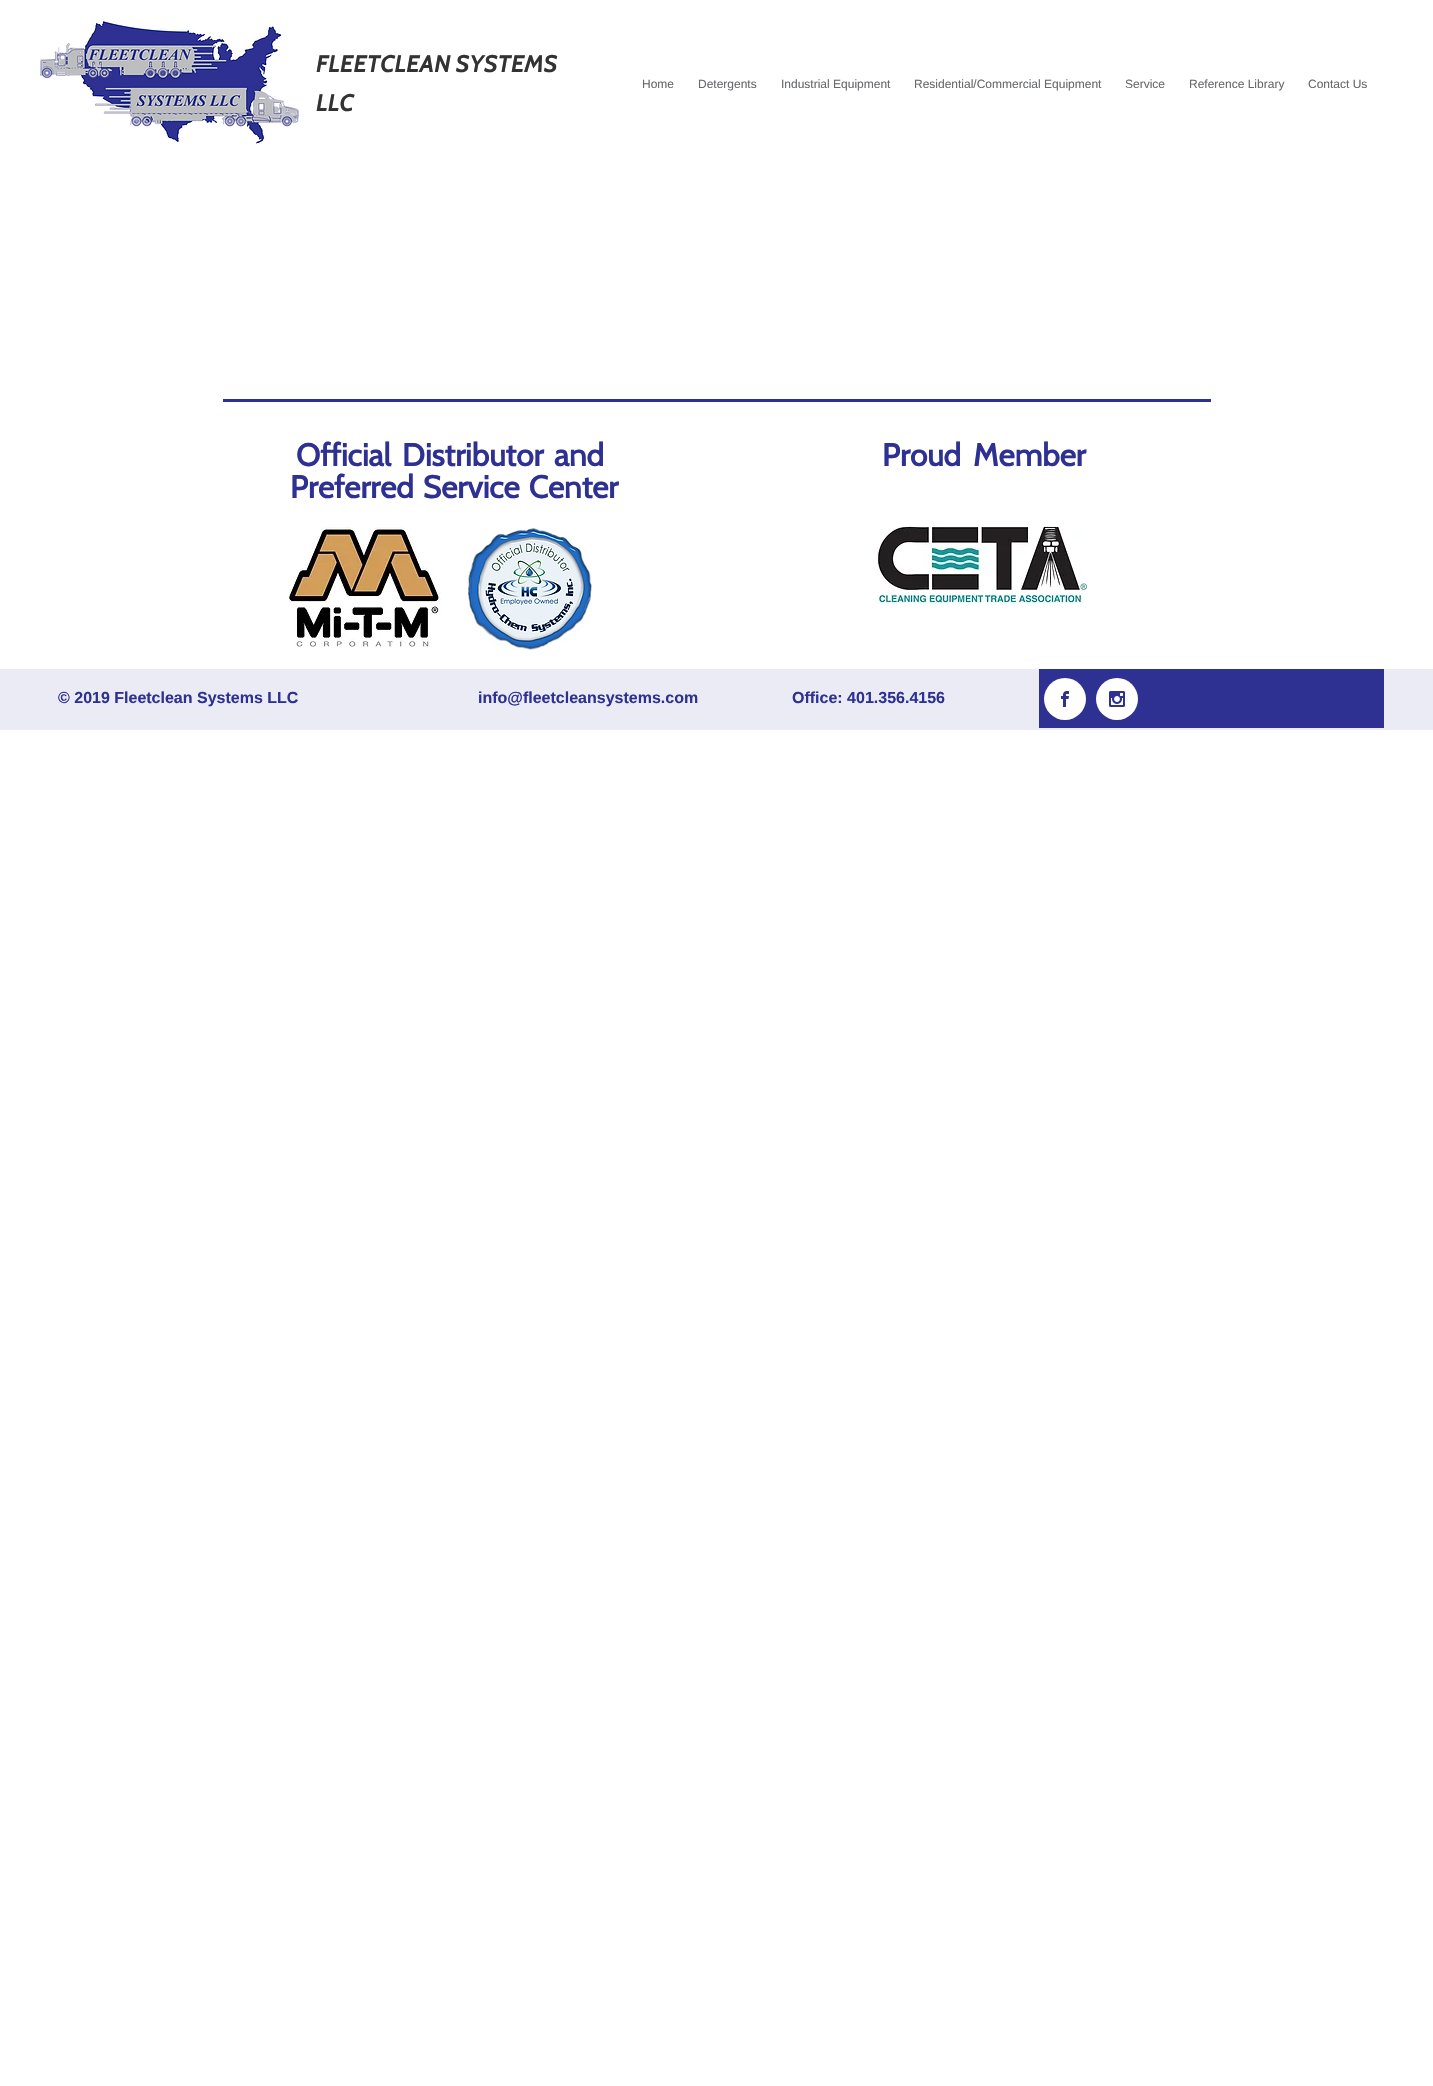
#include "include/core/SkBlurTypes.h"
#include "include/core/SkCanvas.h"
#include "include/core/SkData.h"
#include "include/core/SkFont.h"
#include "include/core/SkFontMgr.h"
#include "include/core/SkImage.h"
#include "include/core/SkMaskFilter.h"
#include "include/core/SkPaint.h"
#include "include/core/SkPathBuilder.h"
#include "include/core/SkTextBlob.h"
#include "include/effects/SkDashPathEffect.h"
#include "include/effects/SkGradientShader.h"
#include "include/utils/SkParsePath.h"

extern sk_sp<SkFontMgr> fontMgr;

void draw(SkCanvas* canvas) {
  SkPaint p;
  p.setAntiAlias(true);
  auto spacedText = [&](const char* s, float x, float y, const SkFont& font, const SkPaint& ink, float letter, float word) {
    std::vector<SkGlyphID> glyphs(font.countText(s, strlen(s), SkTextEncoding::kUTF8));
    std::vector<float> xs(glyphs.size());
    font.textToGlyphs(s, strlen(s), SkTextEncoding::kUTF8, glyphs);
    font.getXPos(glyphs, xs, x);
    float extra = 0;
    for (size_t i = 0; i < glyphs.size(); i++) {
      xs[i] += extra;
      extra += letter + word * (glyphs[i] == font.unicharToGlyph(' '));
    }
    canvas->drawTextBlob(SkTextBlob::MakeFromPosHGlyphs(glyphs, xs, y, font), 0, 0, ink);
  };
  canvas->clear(SK_ColorWHITE);
  canvas->drawImageRect(SkImages::DeferredFromEncodedData(SkData::MakeFromFileName("images/1.png")), SkRect::MakeLTRB(40, 20, 299, 145), SkSamplingOptions());
  p.setColor(SkColorSetRGB(46, 49, 146));
  canvas->drawRect(SkRect::MakeLTRB(223, 399, 1211, 402), p);
  canvas->drawImageRect(SkImages::DeferredFromEncodedData(SkData::MakeFromFileName("images/2.png")), SkRect::MakeLTRB(289, 527, 441, 647), SkSamplingOptions());
  canvas->drawImageRect(SkImages::DeferredFromEncodedData(SkData::MakeFromFileName("images/3.png")), SkRect::MakeLTRB(468, 528, 592, 650), SkSamplingOptions());
  canvas->drawImageRect(SkImages::DeferredFromEncodedData(SkData::MakeFromFileName("images/4.png")), SkRect::MakeLTRB(876, 526, 1088, 604), SkSamplingOptions());
  p.setColor(SkColorSetRGB(235, 235, 245));
  canvas->drawRect(SkRect::MakeLTRB(0, 669, 1433, 730), p);
  p.setColor(SkColorSetRGB(46, 49, 146));
  canvas->drawRect(SkRect::MakeLTRB(1039, 669, 1384, 728), p);
  p.setColor(SK_ColorWHITE);
  canvas->drawCircle(1065, 699, 21, p);
  canvas->drawImageRect(SkImages::DeferredFromEncodedData(SkData::MakeFromFileName("images/5.png")), SkRect::MakeLTRB(1061, 691, 1069, 707), SkSamplingOptions());
  canvas->drawCircle(1117, 699, 21, p);
  canvas->drawImageRect(SkImages::DeferredFromEncodedData(SkData::MakeFromFileName("images/6.png")), SkRect::MakeLTRB(1109, 691, 1125, 707), SkSamplingOptions());
  SkFont font1(fontMgr->matchFamilyStyle("Cabin", SkFontStyle::BoldItalic()), 24);
  font1.setSubpixel(true);
  p.setColor(SkColorSetRGB(51, 51, 51));
  canvas->drawString("FLEETCLEAN SYSTEMS", 316, 72, font1, p);
  canvas->drawString("LLC", 316, 111, font1, p);
  SkFont font2(fontMgr->matchFamilyStyle("Liberation Sans", SkFontStyle::Normal()), 12);
  font2.setSubpixel(true);
  p.setColor(SkColorSetRGB(103, 105, 108));
  canvas->drawString("Home", 642, 88, font2, p);
  canvas->drawString("Detergents", 698, 88, font2, p);
  canvas->drawString("Industrial Equipment", 781, 88, font2, p);
  canvas->drawString("Residential/Commercial Equipment", 914, 88, font2, p);
  canvas->drawString("Service", 1125, 88, font2, p);
  canvas->drawString("Reference Library", 1189, 88, font2, p);
  canvas->drawString("Contact Us", 1308, 88, font2, p);
  SkFont font3(fontMgr->matchFamilyStyle("Cabin", SkFontStyle::Bold()), 31.4f);
  font3.setSubpixel(true);
  p.setColor(SkColorSetRGB(46, 49, 146));
  spacedText("Official Distributor", 296, 466, font3, p, 0, 4);
  canvas->drawString("and", 554, 466, font3, p);
  spacedText("Preferred Service Center", 290, 498, font3, p, 0, 2);
  spacedText("Proud Member", 882, 466, font3, p, 0, 5);
  SkFont font4(fontMgr->matchFamilyStyle("Liberation Sans", SkFontStyle::Bold()), 16);
  font4.setSubpixel(true);
  canvas->drawString("© 2019 Fleetclean Systems LLC", 58, 703, font4, p);
  canvas->drawString("info@fleetcleansystems.com", 478, 703, font4, p);
  canvas->drawString("Office: 401.356.4156", 792, 703, font4, p);
}
